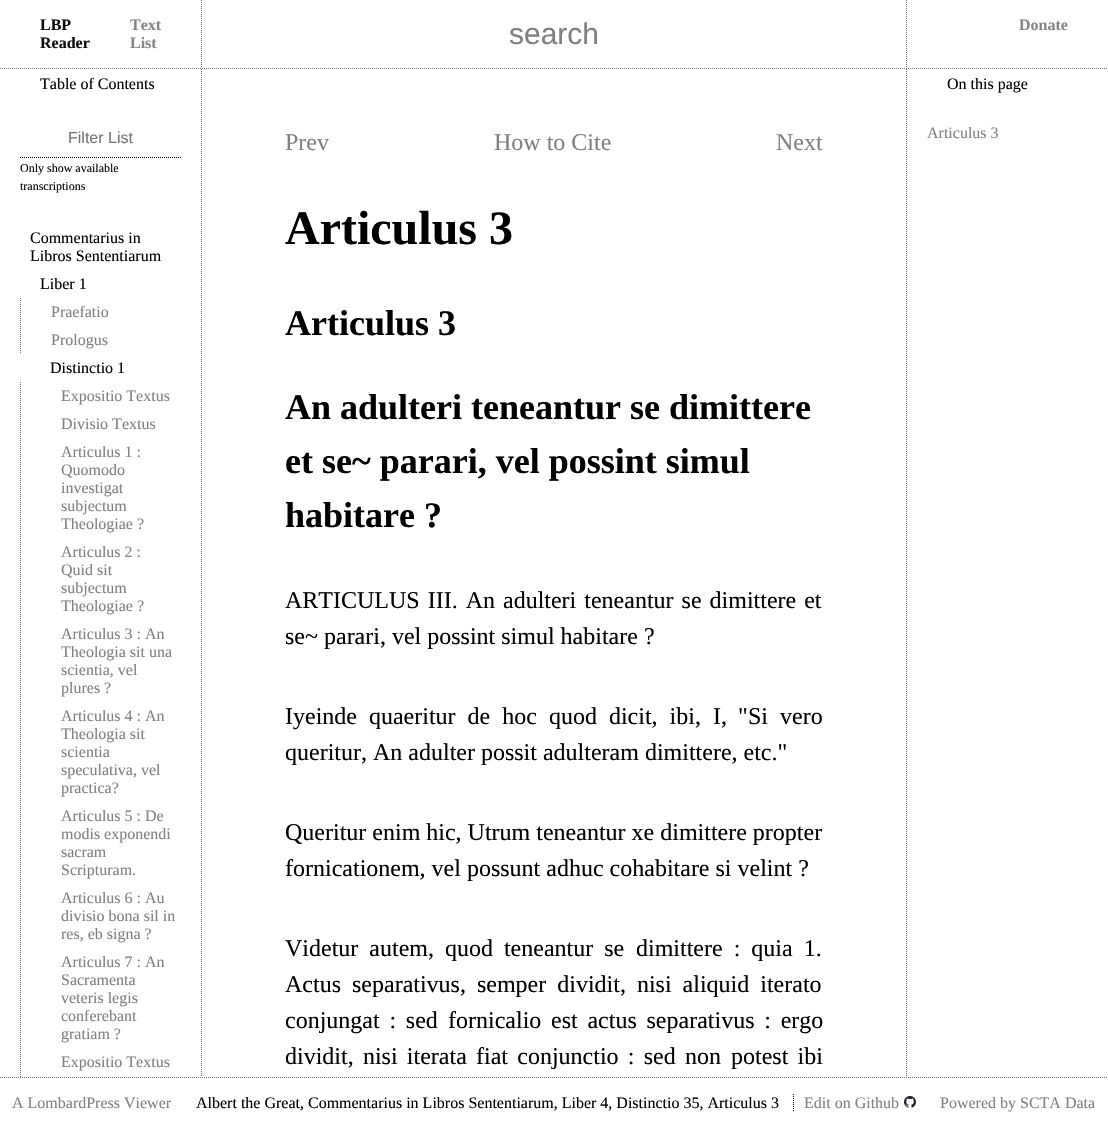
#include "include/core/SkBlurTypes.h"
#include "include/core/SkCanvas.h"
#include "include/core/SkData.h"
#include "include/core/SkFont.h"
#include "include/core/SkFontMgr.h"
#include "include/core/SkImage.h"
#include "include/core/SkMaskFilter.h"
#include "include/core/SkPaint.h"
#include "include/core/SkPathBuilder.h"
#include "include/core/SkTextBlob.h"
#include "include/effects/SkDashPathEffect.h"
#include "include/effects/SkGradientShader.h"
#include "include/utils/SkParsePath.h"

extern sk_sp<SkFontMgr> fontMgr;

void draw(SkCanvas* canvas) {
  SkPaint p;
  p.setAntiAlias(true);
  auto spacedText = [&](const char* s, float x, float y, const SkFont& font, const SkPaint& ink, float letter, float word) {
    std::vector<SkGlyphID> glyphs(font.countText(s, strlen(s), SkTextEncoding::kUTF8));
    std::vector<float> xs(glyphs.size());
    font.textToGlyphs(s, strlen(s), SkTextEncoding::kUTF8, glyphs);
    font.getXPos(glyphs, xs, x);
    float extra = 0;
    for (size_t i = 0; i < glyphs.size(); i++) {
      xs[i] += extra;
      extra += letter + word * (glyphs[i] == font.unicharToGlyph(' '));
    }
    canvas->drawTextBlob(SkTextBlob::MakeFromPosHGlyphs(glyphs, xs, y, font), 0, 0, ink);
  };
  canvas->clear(SK_ColorWHITE);
  p.setStyle(SkPaint::kStroke_Style);
  p.setStrokeWidth(1);
  p.setColor(SkColorSetRGB(109, 109, 109));
  p.setPathEffect(SkDashPathEffect::Make({{1, 1}}, 0));
  canvas->drawPath(SkPathBuilder().moveTo(201.5f, 49).lineTo(201.5f, 1077).detach(), p);
  p.setPathEffect(nullptr);
  p.setPathEffect(SkDashPathEffect::Make({{1, 1}}, 0));
  canvas->drawPath(SkPathBuilder().moveTo(906.5f, 49).lineTo(906.5f, 1077).detach(), p);
  p.setPathEffect(nullptr);
  p.setStyle(SkPaint::kFill_Style);
  p.setColor(SkColorSetARGB(242, 255, 255, 255));
  canvas->drawRect(SkRect::MakeLTRB(201, 49, 907, 68), p);
  p.setStyle(SkPaint::kStroke_Style);
  p.setColor(SkColorSetRGB(116, 116, 116));
  p.setPathEffect(SkDashPathEffect::Make({{1, 1}}, 0));
  canvas->drawPath(SkPathBuilder().moveTo(0, 68.5f).lineTo(1108, 68.5f).detach(), p);
  p.setPathEffect(nullptr);
  p.setPathEffect(SkDashPathEffect::Make({{1, 1}}, 0));
  canvas->drawPath(SkPathBuilder().moveTo(201.5f, 0).lineTo(201.5f, 68).detach(), p);
  p.setPathEffect(nullptr);
  p.setPathEffect(SkDashPathEffect::Make({{1, 1}}, 0));
  canvas->drawPath(SkPathBuilder().moveTo(906.5f, 0).lineTo(906.5f, 68).detach(), p);
  p.setPathEffect(nullptr);
  p.setColor(SK_ColorBLACK);
  p.setPathEffect(SkDashPathEffect::Make({{1, 1}}, 0));
  canvas->drawPath(SkPathBuilder().moveTo(20, 157.5f).lineTo(181, 157.5f).detach(), p);
  p.setPathEffect(nullptr);
  p.setColor(SkColorSetRGB(109, 109, 109));
  p.setPathEffect(SkDashPathEffect::Make({{1, 1}}, 0));
  canvas->drawPath(SkPathBuilder().moveTo(20.5f, 298).lineTo(20.5f, 326).moveTo(20.5f, 326).lineTo(20.5f, 354).detach(), p);
  p.setPathEffect(nullptr);
  p.setPathEffect(SkDashPathEffect::Make({{1, 1}}, 0));
  canvas->drawPath(SkPathBuilder().moveTo(20.5f, 382).lineTo(20.5f, 410).moveTo(20.5f, 410).lineTo(20.5f, 438).detach(), p);
  p.setPathEffect(nullptr);
  p.setPathEffect(SkDashPathEffect::Make({{1, 1}}, 0));
  canvas->drawPath(SkPathBuilder().moveTo(20.5f, 438).lineTo(20.5f, 538).detach(), p);
  p.setPathEffect(nullptr);
  p.setPathEffect(SkDashPathEffect::Make({{1, 1}}, 0));
  canvas->drawPath(SkPathBuilder().moveTo(20.5f, 538).lineTo(20.5f, 620).detach(), p);
  p.setPathEffect(nullptr);
  p.setPathEffect(SkDashPathEffect::Make({{1, 1}}, 0));
  canvas->drawPath(SkPathBuilder().moveTo(20.5f, 620).lineTo(20.5f, 702).detach(), p);
  p.setPathEffect(nullptr);
  p.setPathEffect(SkDashPathEffect::Make({{1, 1}}, 0));
  canvas->drawPath(SkPathBuilder().moveTo(20.5f, 702).lineTo(20.5f, 802).detach(), p);
  p.setPathEffect(nullptr);
  p.setPathEffect(SkDashPathEffect::Make({{1, 1}}, 0));
  canvas->drawPath(SkPathBuilder().moveTo(20.5f, 802).lineTo(20.5f, 884).detach(), p);
  p.setPathEffect(nullptr);
  p.setPathEffect(SkDashPathEffect::Make({{1, 1}}, 0));
  canvas->drawPath(SkPathBuilder().moveTo(20.5f, 884).lineTo(20.5f, 948).detach(), p);
  p.setPathEffect(nullptr);
  p.setPathEffect(SkDashPathEffect::Make({{1, 1}}, 0));
  canvas->drawPath(SkPathBuilder().moveTo(20.5f, 948).lineTo(20.5f, 1048).detach(), p);
  p.setPathEffect(nullptr);
  p.setPathEffect(SkDashPathEffect::Make({{1, 1}}, 0));
  canvas->drawPath(SkPathBuilder().moveTo(20.5f, 1048).lineTo(20.5f, 1076).detach(), p);
  p.setPathEffect(nullptr);
  canvas->save();
  canvas->clipRect(SkRect::MakeLTRB(0, 49, 201, 1077));
  p.setPathEffect(SkDashPathEffect::Make({{1, 1}}, 0));
  canvas->drawPath(SkPathBuilder().moveTo(20.5f, 1076).lineTo(20.5f, 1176).detach(), p);
  p.setPathEffect(nullptr);
  canvas->restore();
  p.setColor(SkColorSetRGB(111, 111, 111));
  p.setPathEffect(SkDashPathEffect::Make({{1, 1}}, 0));
  canvas->drawPath(SkPathBuilder().moveTo(0, 1077.5f).lineTo(1108, 1077.5f).detach(), p);
  p.setPathEffect(nullptr);
  p.setColor(SkColorSetRGB(3, 3, 3));
  p.setPathEffect(SkDashPathEffect::Make({{1, 1}}, 0));
  canvas->drawPath(SkPathBuilder().moveTo(793.5f, 1094).lineTo(793.5f, 1111).detach(), p);
  p.setPathEffect(nullptr);
  canvas->drawImageRect(SkImages::DeferredFromEncodedData(SkData::MakeFromFileName("images/1.png")), SkRect::MakeLTRB(904, 1096, 916, 1108), SkSamplingOptions());
  SkFont font1(fontMgr->matchFamilyStyle("Liberation Serif", SkFontStyle::Bold()), 16);
  font1.setSubpixel(true);
  p.setStyle(SkPaint::kFill_Style);
  p.setColor(SkColorSetRGB(13, 13, 13));
  canvas->drawString("LBP", 40, 30, font1, p);
  canvas->drawString("Reader", 40, 48, font1, p);
  p.setColor(SkColorSetRGB(134, 134, 134));
  canvas->drawString("Text", 130, 30, font1, p);
  canvas->drawString("List", 130, 48, font1, p);
  SkFont font2(fontMgr->matchFamilyStyle("Liberation Sans", SkFontStyle::Normal()), 30);
  font2.setSubpixel(true);
  p.setColor(SkColorSetRGB(128, 128, 128));
  canvas->drawString("search", 509, 44, font2, p);
  p.setColor(SkColorSetRGB(134, 134, 134));
  canvas->drawString("Donate", 1019, 30, font1, p);
  SkFont font3(fontMgr->matchFamilyStyle("Liberation Serif", SkFontStyle::Normal()), 16);
  font3.setSubpixel(true);
  p.setColor(SK_ColorBLACK);
  canvas->drawString("Table of Contents", 40, 89, font3, p);
  SkFont font4(fontMgr->matchFamilyStyle("Liberation Sans", SkFontStyle::Normal()), 16);
  font4.setSubpixel(true);
  p.setColor(SkColorSetRGB(117, 117, 117));
  canvas->drawString("Filter List", 68, 143, font4, p);
  SkFont font5(fontMgr->matchFamilyStyle("Liberation Serif", SkFontStyle::Normal()), 12);
  font5.setSubpixel(true);
  p.setColor(SK_ColorBLACK);
  canvas->drawString("Only show available", 20, 172, font5, p);
  canvas->drawString("transcriptions", 20, 190, font5, p);
  canvas->drawString("Commentarius in", 30, 243, font3, p);
  canvas->drawString("Libros Sententiarum", 30, 261, font3, p);
  canvas->drawString("Liber 1", 40, 289, font3, p);
  p.setColor(SkColorSetRGB(128, 128, 128));
  canvas->drawString("Praefatio", 51, 317, font3, p);
  canvas->drawString("Prologus", 51, 345, font3, p);
  p.setColor(SK_ColorBLACK);
  canvas->drawString("Distinctio 1", 50, 373, font3, p);
  p.setColor(SkColorSetRGB(128, 128, 128));
  canvas->drawString("Expositio Textus", 61, 401, font3, p);
  canvas->drawString("Divisio Textus", 61, 429, font3, p);
  canvas->drawString("Articulus 1 :", 61, 457, font3, p);
  canvas->drawString("Quomodo", 61, 475, font3, p);
  canvas->drawString("investigat", 61, 493, font3, p);
  canvas->drawString("subjectum", 61, 511, font3, p);
  canvas->drawString("Theologiae ?", 61, 529, font3, p);
  canvas->drawString("Articulus 2 :", 61, 557, font3, p);
  canvas->drawString("Quid sit", 61, 575, font3, p);
  canvas->drawString("subjectum", 61, 593, font3, p);
  canvas->drawString("Theologiae ?", 61, 611, font3, p);
  canvas->drawString("Articulus 3 : An", 61, 639, font3, p);
  canvas->drawString("Theologia sit una", 61, 657, font3, p);
  canvas->drawString("scientia, vel", 61, 675, font3, p);
  canvas->drawString("plures ?", 61, 693, font3, p);
  canvas->drawString("Articulus 4 : An", 61, 721, font3, p);
  canvas->drawString("Theologia sit", 61, 739, font3, p);
  canvas->drawString("scientia", 61, 757, font3, p);
  canvas->drawString("speculativa, vel", 61, 775, font3, p);
  canvas->drawString("practica?", 61, 793, font3, p);
  canvas->drawString("Articulus 5 : De", 61, 821, font3, p);
  canvas->drawString("modis exponendi", 61, 839, font3, p);
  canvas->drawString("sacram", 61, 857, font3, p);
  canvas->drawString("Scripturam.", 61, 875, font3, p);
  canvas->drawString("Articulus 6 : Au", 61, 903, font3, p);
  canvas->drawString("divisio bona sil in", 61, 921, font3, p);
  canvas->drawString("res, eb signa ?", 61, 939, font3, p);
  canvas->drawString("Articulus 7 : An", 61, 967, font3, p);
  canvas->drawString("Sacramenta", 61, 985, font3, p);
  canvas->drawString("veteris legis", 61, 1003, font3, p);
  canvas->drawString("conferebant", 61, 1021, font3, p);
  canvas->drawString("gratiam ?", 61, 1039, font3, p);
  canvas->drawString("Expositio Textus", 61, 1067, font3, p);
  p.setColor(SK_ColorBLACK);
  canvas->drawString("On this page", 947, 89, font3, p);
  p.setColor(SkColorSetRGB(128, 128, 128));
  canvas->drawString("Articulus 3", 927, 138, font3, p);
  SkFont font6(fontMgr->matchFamilyStyle("Liberation Serif", SkFontStyle::Normal()), 24);
  font6.setSubpixel(true);
  canvas->drawString("Prev", 285, 150, font6, p);
  canvas->drawString("How to Cite", 494, 150, font6, p);
  canvas->drawString("Next", 776, 150, font6, p);
  SkFont font7(fontMgr->matchFamilyStyle("Liberation Serif", SkFontStyle::Bold()), 48);
  font7.setSubpixel(true);
  p.setColor(SK_ColorBLACK);
  canvas->drawString("Articulus 3", 285, 244, font7, p);
  SkFont font8(fontMgr->matchFamilyStyle("Liberation Serif", SkFontStyle::Bold()), 36);
  font8.setSubpixel(true);
  canvas->drawString("Articulus 3", 285, 335, font8, p);
  canvas->drawString("An adulteri teneantur se dimittere", 285, 419, font8, p);
  canvas->drawString("et se~ parari, vel possint simul", 285, 473, font8, p);
  canvas->drawString("habitare ?", 285, 527, font8, p);
  spacedText("ARTICULUS III. An adulteri teneantur se dimittere et", 285, 608, font6, p, 0, 2);
  canvas->drawString("se~ parari, vel possint simul habitare ?", 285, 644, font6, p);
  spacedText("Iyeinde quaeritur de hoc quod dicit, ibi, I,", 285, 724, font6, p, 0, 6);
  canvas->drawString("\"", 738, 724, font6, p);
  spacedText("Si vero", 748, 724, font6, p, 0, 6);
  canvas->drawString("queritur, An adulter possit adulteram dimittere, etc.\"", 285, 760, font6, p);
  canvas->drawString("Queritur enim hic, Utrum teneantur xe dimittere propter", 285, 840, font6, p);
  canvas->drawString("fornicationem, vel possunt adhuc cohabitare si velint ?", 285, 876, font6, p);
  spacedText("Videtur autem, quod teneantur se", 285, 956, font6, p, 0, 5);
  spacedText("dimittere : quia 1.", 636, 956, font6, p, 0, 5);
  spacedText("Actus separativus, semper dividit, nisi aliquid iterato", 285, 992, font6, p, 0, 5);
  spacedText("conjungat : sed", 285, 1028, font6, p, 0, 3.75f);
  spacedText("fornicalio est actus separativus : ergo", 448, 1028, font6, p, 0, 3.75f);
  spacedText("dividit, nisi iterata fiat conjunctio : sed non", 285, 1064, font6, p, 0, 3.25f);
  spacedText("potest ibi", 731, 1064, font6, p, 0, 3.25f);
  p.setColor(SkColorSetRGB(128, 128, 128));
  canvas->drawString("A LombardPress Viewer", 12, 1108, font3, p);
  p.setColor(SK_ColorBLACK);
  canvas->drawString("Albert the Great, Commentarius in Libros Sententiarum, Liber 4, Distinctio 35, Articulus 3", 196, 1108, font3, p);
  p.setColor(SkColorSetRGB(128, 128, 128));
  canvas->drawString("Edit on Github", 804, 1108, font3, p);
  canvas->drawString("Powered by SCTA Data", 940, 1108, font3, p);
}
